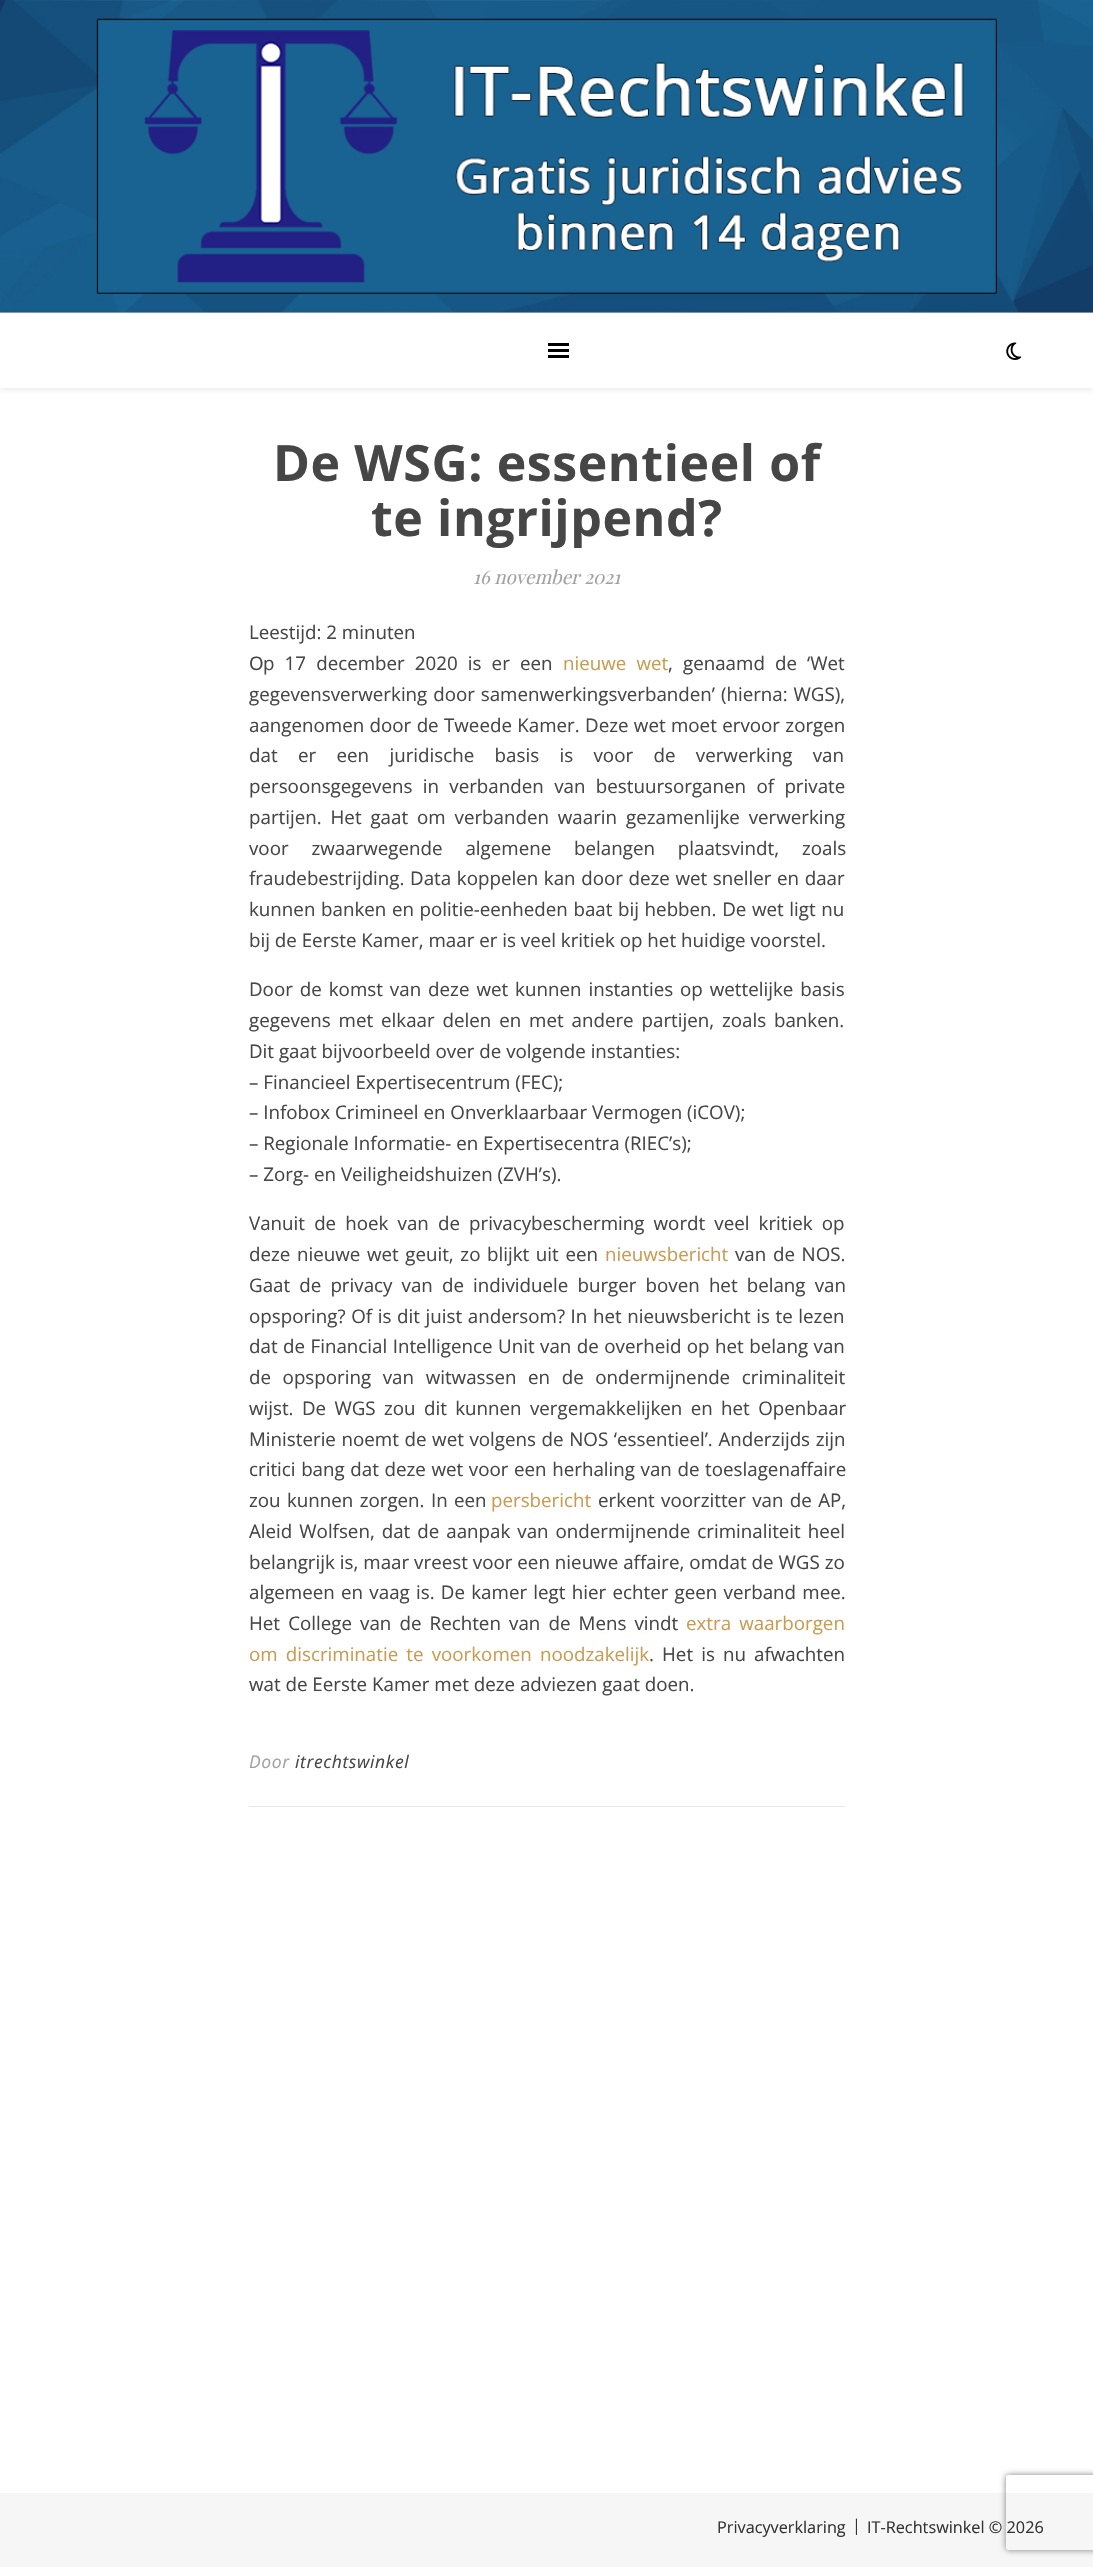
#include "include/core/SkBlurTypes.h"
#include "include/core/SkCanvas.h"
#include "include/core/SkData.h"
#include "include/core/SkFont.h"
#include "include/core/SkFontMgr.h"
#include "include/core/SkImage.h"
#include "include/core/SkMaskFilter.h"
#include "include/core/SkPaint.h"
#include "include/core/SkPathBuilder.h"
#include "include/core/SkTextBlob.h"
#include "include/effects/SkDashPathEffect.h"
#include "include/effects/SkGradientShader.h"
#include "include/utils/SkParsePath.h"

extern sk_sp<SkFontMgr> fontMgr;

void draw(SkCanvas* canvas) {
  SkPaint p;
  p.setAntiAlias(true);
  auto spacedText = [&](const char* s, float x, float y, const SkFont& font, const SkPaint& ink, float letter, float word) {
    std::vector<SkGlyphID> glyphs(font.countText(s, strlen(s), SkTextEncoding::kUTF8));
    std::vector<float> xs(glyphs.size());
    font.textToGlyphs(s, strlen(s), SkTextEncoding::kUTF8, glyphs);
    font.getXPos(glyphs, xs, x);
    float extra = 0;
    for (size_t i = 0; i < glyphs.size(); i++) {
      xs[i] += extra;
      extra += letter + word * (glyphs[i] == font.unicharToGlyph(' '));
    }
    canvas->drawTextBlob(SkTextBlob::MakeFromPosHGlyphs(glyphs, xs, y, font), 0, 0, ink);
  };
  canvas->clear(SK_ColorWHITE);
  p.setColor(SkColorSetRGB(224, 224, 224));
  canvas->drawRect(SkRect::MakeLTRB(0, 312, 1093, 313), p);
  canvas->drawImageRect(SkImages::DeferredFromEncodedData(SkData::MakeFromFileName("images/1.png")), SkRect::MakeLTRB(0, 0, 1093, 313), SkSamplingOptions());
  p.setColor(SkColorSetARGB(26, 0, 0, 0));
  p.setMaskFilter(SkMaskFilter::MakeBlur(kNormal_SkBlurStyle, 3));
  canvas->drawRect(SkRect::MakeLTRB(0, 314, 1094, 389), p);
  p.setMaskFilter(nullptr);
  p.setColor(SK_ColorWHITE);
  canvas->drawRect(SkRect::MakeLTRB(0, 313, 1093, 388), p);
  p.setColor(SK_ColorBLACK);
  canvas->drawRect(SkRect::MakeLTRB(548, 343, 569, 346), p);
  canvas->drawRect(SkRect::MakeLTRB(548, 349, 569, 352), p);
  canvas->drawRect(SkRect::MakeLTRB(548, 355, 569, 358), p);
  canvas->drawImageRect(SkImages::DeferredFromEncodedData(SkData::MakeFromFileName("images/2.png")), SkRect::MakeLTRB(1006, 342, 1022, 360), SkSamplingOptions());
  p.setColor(SkColorSetRGB(232, 232, 232));
  canvas->drawRect(SkRect::MakeLTRB(249, 1806, 845, 1807), p);
  p.setColor(SkColorSetRGB(246, 246, 246));
  canvas->drawRect(SkRect::MakeLTRB(0, 2493, 1093, 2567), p);
  canvas->save();
  canvas->clipPath(SkPathBuilder(SkPathFillType::kEvenOdd).moveTo(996, 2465).lineTo(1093, 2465).lineTo(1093, 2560).lineTo(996, 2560).close().moveTo(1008.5f, 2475).lineTo(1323.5f, 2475).cubicTo(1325, 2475, 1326, 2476, 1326, 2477.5f).lineTo(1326, 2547.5f).cubicTo(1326, 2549, 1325, 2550, 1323.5f, 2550).lineTo(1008.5f, 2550).cubicTo(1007, 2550, 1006, 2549, 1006, 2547.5f).lineTo(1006, 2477.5f).cubicTo(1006, 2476, 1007, 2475, 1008.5f, 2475).close().detach(), true);
  p.setColor(SkColorSetRGB(128, 128, 128));
  p.setMaskFilter(SkMaskFilter::MakeBlur(kNormal_SkBlurStyle, 3));
  canvas->drawRoundRect(SkRect::MakeLTRB(1006, 2475, 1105, 2550), 2.5f, 2.5f, p);
  p.setMaskFilter(nullptr);
  canvas->restore();
  SkFont font1(fontMgr->matchFamilyStyle("Open Sans", SkFontStyle::Bold()), 50);
  font1.setSubpixel(true);
  p.setColor(SkColorSetRGB(70, 70, 70));
  spacedText("De WSG: essentieel of", 273, 481, font1, p, 0.6f, 0);
  spacedText("te ingrijpend?", 371, 536, font1, p, 0.6f, 0);
  SkFont font2(fontMgr->matchFamilyStyle("Playfair Display", SkFontStyle::Italic()), 18.75f);
  font2.setSubpixel(true);
  p.setColor(SkColorSetRGB(161, 161, 161));
  canvas->drawString("16 november 2021", 473, 584, font2, p);
  SkFont font3(fontMgr->matchFamilyStyle("Open Sans", SkFontStyle::Normal()), 18.75f);
  font3.setSubpixel(true);
  p.setColor(SkColorSetRGB(70, 70, 70));
  canvas->drawString("Leestijd: 2 minuten", 249, 639, font3, p);
  SkFont font4(fontMgr->matchFamilyStyle("Noto Sans", SkFontStyle::Normal()), 18.75f);
  font4.setSubpixel(true);
  canvas->drawString("O", 249, 670, font4, p);
  spacedText("p 17 december 2020 is er een", 263, 670, font3, p, 0, 5.25f);
  p.setColor(SkColorSetRGB(202, 155, 82));
  spacedText("nieuwe wet", 563, 670, font3, p, 0, 5.25f);
  p.setColor(SkColorSetRGB(70, 70, 70));
  spacedText(", genaamd de ‘Wet", 668, 670, font3, p, 0, 5.25f);
  spacedText("gegevensverwerking door samenwerkingsverbanden’ (hierna: WGS),", 249, 701, font3, p, 0, 1);
  spacedText("aangenomen door de Tweede Kamer. Deze wet moet ervoor zorgen", 249, 732, font3, p, 0, 0.5f);
  spacedText("dat er een juridische basis is voor de verwerking van", 249, 762, font3, p, 0, 15.5f);
  spacedText("persoonsgegevens in verbanden van bestuursorganen of private", 249, 793, font3, p, 0, 5.5f);
  spacedText("partijen. Het gaat om verbanden waarin gezamenlijke verwerking", 249, 824, font3, p, 0, 4);
  spacedText("voor zwaarwegende algemene belangen plaatsvindt, zoals", 249, 855, font3, p, 0, 18);
  spacedText("fraudebestrijding. Data koppelen kan door deze wet sneller en daar", 249, 885, font3, p, 0, 0.75f);
  spacedText("kunnen banken en politie-eenheden baat bij hebben. De wet ligt nu", 249, 916, font3, p, 0, 0.75f);
  canvas->drawString("bij de Eerste Kamer, maar er is veel kritiek op het huidige voorstel.", 249, 947, font3, p);
  spacedText("Door de komst van deze wet kunnen instanties op wettelijke basis", 249, 996, font3, p, 0, 2.1f);
  spacedText("gegevens met elkaar delen en met andere partijen, zoals banken.", 249, 1027, font3, p, 0, 3);
  canvas->drawString("Dit gaat bijvoorbeeld over de volgende instanties:", 249, 1058, font3, p);
  canvas->drawString("– Financieel Expertisecentrum (FEC);", 249, 1089, font3, p);
  canvas->drawString("– Infobox Crimineel en Onverklaarbaar Vermogen (iCOV);", 249, 1119, font3, p);
  canvas->drawString("– Regionale Informatie- en Expertisecentra (RIEC’s);", 249, 1150, font3, p);
  canvas->drawString("– Zorg- en Veiligheidshuizen (ZVH’s).", 249, 1181, font3, p);
  spacedText("Vanuit de hoek van de privacybescherming wordt veel kritiek op", 249, 1230, font3, p, 0, 4.25f);
  spacedText("deze nieuwe wet geuit, zo blijkt uit een", 249, 1261, font3, p, 0, 1.75f);
  p.setColor(SkColorSetRGB(202, 155, 82));
  canvas->drawString("nieuwsbericht", 605, 1261, font3, p);
  p.setColor(SkColorSetRGB(70, 70, 70));
  spacedText("van de NOS.", 735, 1261, font3, p, 0, 1.75f);
  spacedText("Gaat de privacy van de individuele burger boven het belang van", 249, 1292, font3, p, 0, 4.25f);
  spacedText("opsporing? Of is dit juist andersom? In het nieuwsbericht is te lezen", 249, 1323, font3, p, 0, 0.75f);
  spacedText("dat de Financial Intelligence Unit van de overheid op het belang van", 249, 1353, font3, p, 0, 0.6f);
  spacedText("de opsporing van witwassen en de ondermijnende criminaliteit", 249, 1384, font3, p, 0, 6.75f);
  spacedText("wijst. De WGS zou dit kunnen vergemakkelijken en het Openbaar", 249, 1415, font3, p, 0, 3.5f);
  spacedText("Ministerie noemt de wet volgens de NOS ‘essentieel’. Anderzijds zijn", 249, 1446, font3, p, 0, 0.75f);
  spacedText("critici bang dat deze wet voor een herhaling van de toeslagenaffaire", 249, 1476, font3, p, 0, 0.75f);
  spacedText("zou kunnen zorgen. In een", 249, 1507, font3, p, 0, 1.5f);
  p.setColor(SkColorSetRGB(202, 155, 82));
  canvas->drawString("persbericht", 491, 1507, font3, p);
  p.setColor(SkColorSetRGB(70, 70, 70));
  spacedText("erkent voorzitter van de AP,", 598, 1507, font3, p, 0, 1.5f);
  spacedText("Aleid Wolfsen, dat de aanpak van ondermijnende criminaliteit heel", 249, 1538, font3, p, 0, 2.1f);
  spacedText("belangrijk is, maar vreest voor een nieuwe affaire, omdat de WGS zo", 249, 1569, font3, p, 0, 0.1f);
  spacedText("algemeen en vaag is. De kamer legt hier echter geen verband mee.", 249, 1599, font3, p, 0, 1.4f);
  spacedText("Het College van de Rechten van de Mens vindt", 249, 1630, font3, p, 0, 3.25f);
  p.setColor(SkColorSetRGB(202, 155, 82));
  spacedText("extra waarborgen", 686, 1630, font3, p, 0, 3.25f);
  spacedText("om discriminatie te voorkomen noodzakelijk", 249, 1661, font3, p, 0, 3.25f);
  p.setColor(SkColorSetRGB(70, 70, 70));
  spacedText(". Het is nu afwachten", 649, 1661, font3, p, 0, 3.25f);
  canvas->drawString("wat de Eerste Kamer met deze adviezen gaat doen.", 249, 1691, font3, p);
  SkFont font5(fontMgr->matchFamilyStyle("Open Sans", SkFontStyle::Italic()), 17.5f);
  font5.setSubpixel(true);
  p.setColor(SkColorSetRGB(161, 161, 161));
  spacedText("Door", 249, 1768, font5, p, 0.6f, 0);
  p.setColor(SkColorSetRGB(70, 70, 70));
  spacedText("itrechtswinkel", 295, 1768, font5, p, 0.6f, 0);
  SkFont font6(fontMgr->matchFamilyStyle("Open Sans", SkFontStyle::Normal()), 16.25f);
  font6.setSubpixel(true);
  p.setColor(SkColorSetRGB(51, 51, 51));
  canvas->drawString("Privacyverklaring", 717, 2533, font6, p);
  canvas->drawString("|", 852, 2531, font6, p);
  canvas->drawString("IT-Rechtswinkel © 2026", 867, 2533, font6, p);
}
